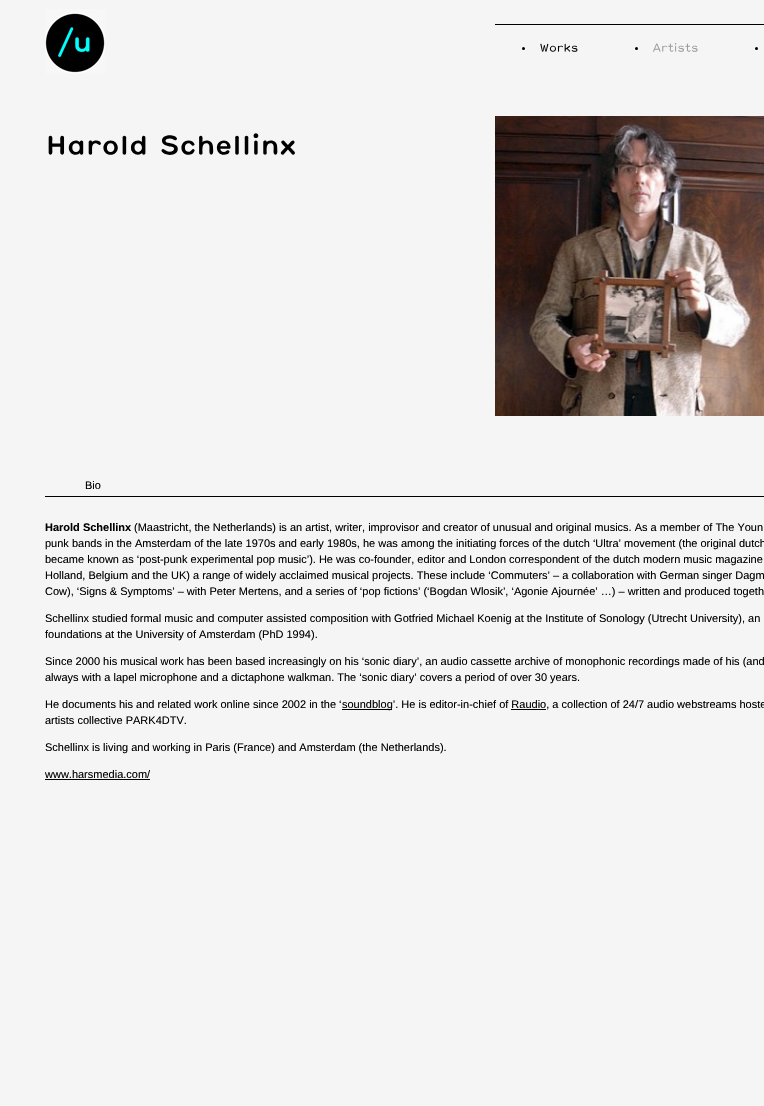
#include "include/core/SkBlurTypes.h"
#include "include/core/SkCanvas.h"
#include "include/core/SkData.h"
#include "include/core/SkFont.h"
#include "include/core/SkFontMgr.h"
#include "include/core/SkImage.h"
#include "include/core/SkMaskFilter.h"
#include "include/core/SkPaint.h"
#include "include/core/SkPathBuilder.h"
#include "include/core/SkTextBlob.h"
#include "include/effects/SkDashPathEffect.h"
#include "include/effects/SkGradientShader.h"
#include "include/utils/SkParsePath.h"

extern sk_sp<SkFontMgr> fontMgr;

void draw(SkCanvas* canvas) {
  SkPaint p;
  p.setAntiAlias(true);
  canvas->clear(SkColorSetRGB(245, 245, 245));
  canvas->drawImageRect(SkImages::DeferredFromEncodedData(SkData::MakeFromFileName("images/1.png")), SkRect::MakeLTRB(45, 9, 105, 74), SkSamplingOptions());
  p.setColor(SK_ColorBLACK);
  canvas->drawRect(SkRect::MakeLTRB(495, 24, 764, 25), p);
  canvas->drawCircle(523.5f, 48.5f, 1.5f, p);
  canvas->drawImageRect(SkImages::DeferredFromEncodedData(SkData::MakeFromFileName("images/2.png")), SkRect::MakeLTRB(540, 43, 578, 52), SkSamplingOptions());
  canvas->drawCircle(636.5f, 48.5f, 1.5f, p);
  canvas->drawImageRect(SkImages::DeferredFromEncodedData(SkData::MakeFromFileName("images/3.png")), SkRect::MakeLTRB(653, 43, 698, 52), SkSamplingOptions());
  canvas->drawCircle(756.5f, 48.5f, 1.5f, p);
  canvas->drawImageRect(SkImages::DeferredFromEncodedData(SkData::MakeFromFileName("images/4.png")), SkRect::MakeLTRB(48, 135, 146, 155), SkSamplingOptions());
  canvas->drawImageRect(SkImages::DeferredFromEncodedData(SkData::MakeFromFileName("images/5.png")), SkRect::MakeLTRB(161, 133, 295, 155), SkSamplingOptions());
  canvas->drawImageRect(SkImages::DeferredFromEncodedData(SkData::MakeFromFileName("images/6.png")), SkRect::MakeLTRB(495, 116, 764, 416), SkSamplingOptions());
  canvas->drawRect(SkRect::MakeLTRB(45, 496, 764, 497), p);
  canvas->drawRect(SkRect::MakeLTRB(342, 709, 392, 710), p);
  canvas->drawRect(SkRect::MakeLTRB(511, 709, 546, 710), p);
  canvas->drawRect(SkRect::MakeLTRB(45, 779, 150, 780), p);
  SkFont font1(fontMgr->matchFamilyStyle("Liberation Sans", SkFontStyle::Normal()), 11);
  font1.setSubpixel(true);
  canvas->drawString("Bio", 85, 489, font1, p);
  SkFont font2(fontMgr->matchFamilyStyle("Liberation Sans", SkFontStyle::Bold()), 11);
  font2.setSubpixel(true);
  canvas->drawString("Harold Schellinx", 45, 531, font2, p);
  canvas->drawString("(Maastricht, the Netherlands) is an artist, writer, improvisor and creator of unusual and original musics. As a member of The Youn", 134, 531, font1, p);
  canvas->drawString("punk bands in the Amsterdam of the late 1970s and early 1980s, he was among the initiating forces of the dutch ‘Ultra’ movement (the original dutch", 45, 547, font1, p);
  canvas->drawString("became known as ‘post-punk experimental pop music’). He was co-founder, editor and London correspondent of the dutch modern music magazine", 45, 563, font1, p);
  canvas->drawString("Holland, Belgium and the UK) a range of widely acclaimed musical projects. These include ‘Commuters’ – a collaboration with German singer Dagm", 45, 579, font1, p);
  canvas->drawString("Cow), ‘Signs & Symptoms’ – with Peter Mertens, and a series of ‘pop fictions’ (‘Bogdan Wlosik’, ‘Agonie Ajournée’ …) – written and produced togeth", 45, 595, font1, p);
  canvas->drawString("Schellinx studied formal music and computer assisted composition with Gotfried Michael Koenig at the Institute of Sonology (Utrecht University), an", 45, 622, font1, p);
  canvas->drawString("foundations at the University of Amsterdam (PhD 1994).", 45, 638, font1, p);
  canvas->drawString("Since 2000 his musical work has been based increasingly on his ‘sonic diary’, an audio cassette archive of monophonic recordings made of his (and", 45, 665, font1, p);
  canvas->drawString("always with a lapel microphone and a dictaphone walkman. The ‘sonic diary’ covers a period of over 30 years.", 45, 681, font1, p);
  canvas->drawString("He documents his and related work online since 2002 in the ‘", 45, 708, font1, p);
  canvas->drawString("soundblog’. He is editor-in-chief of Raudio, a collection of 24/7 audio webstreams hoste", 342, 708, font1, p);
  canvas->drawString("artists collective PARK4DTV.", 45, 724, font1, p);
  canvas->drawString("Schellinx is living and working in Paris (France) and Amsterdam (the Netherlands).", 45, 751, font1, p);
  canvas->drawString("www.harsmedia.com/", 45, 778, font1, p);
}
